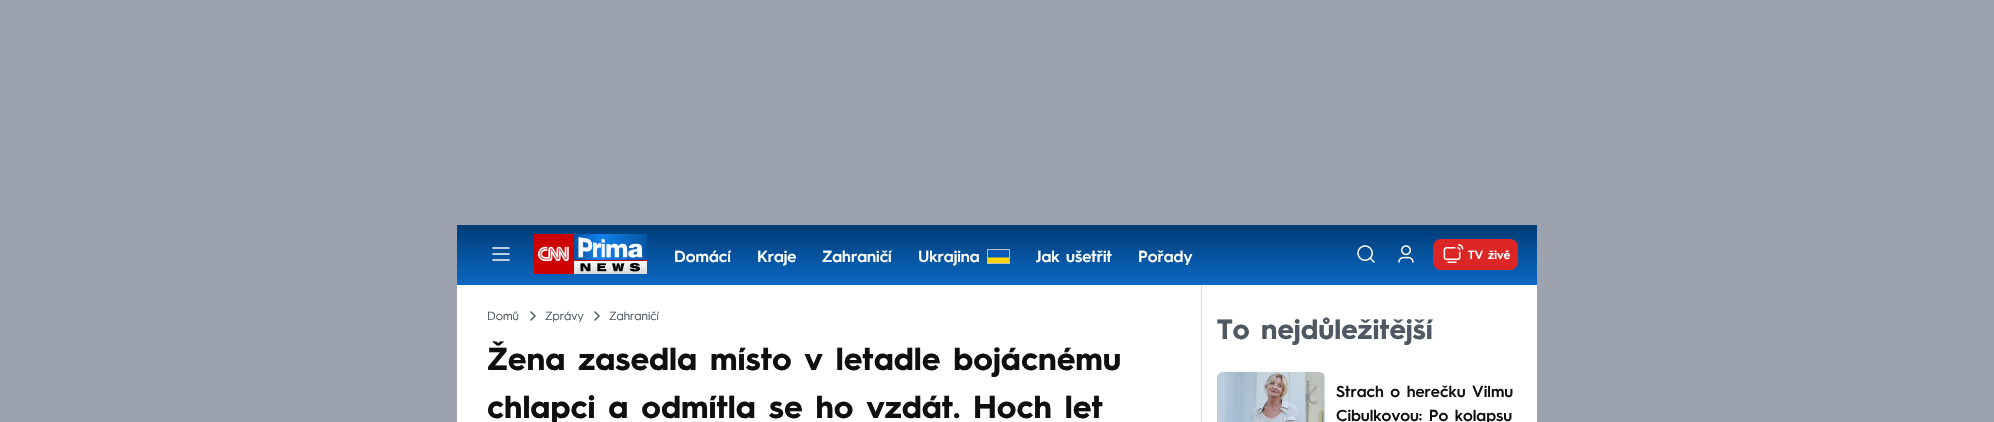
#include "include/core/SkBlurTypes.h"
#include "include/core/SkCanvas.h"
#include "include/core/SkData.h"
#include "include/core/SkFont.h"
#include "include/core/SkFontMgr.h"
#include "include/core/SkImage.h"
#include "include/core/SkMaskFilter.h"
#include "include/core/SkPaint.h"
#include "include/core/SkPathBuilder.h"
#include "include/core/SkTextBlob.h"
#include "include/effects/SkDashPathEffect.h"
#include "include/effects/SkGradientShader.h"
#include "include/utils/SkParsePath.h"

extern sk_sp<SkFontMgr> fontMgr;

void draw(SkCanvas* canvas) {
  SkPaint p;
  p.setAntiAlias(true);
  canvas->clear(SkColorSetRGB(156, 163, 175));
  p.setColor(SK_ColorWHITE);
  canvas->drawRect(SkRect::MakeLTRB(457, 285, 1537, 422), p);
  {
    const SkColor colors[] = {SkColorSetRGB(0, 60, 118), SkColorSetRGB(11, 104, 195)};
    const float stops[] = {0, 1};
    const SkPoint ends[] = {{997, 225}, {997, 285}};
    p.setShader(SkGradientShader::MakeLinear(ends, colors, stops, 2, SkTileMode::kClamp));
    p.setAlpha(255);
  }
  canvas->drawRect(SkRect::MakeLTRB(457, 225, 1537, 285), p);
  canvas->drawImageRect(SkImages::DeferredFromEncodedData(SkData::MakeFromFileName("images/1.png")), SkRect::MakeLTRB(492, 247, 510, 261), SkSamplingOptions());
  canvas->drawImageRect(SkImages::DeferredFromEncodedData(SkData::MakeFromFileName("images/2.png")), SkRect::MakeLTRB(534, 234, 647, 274), SkSamplingOptions());
  canvas->drawImageRect(SkImages::DeferredFromEncodedData(SkData::MakeFromFileName("images/3.png")), SkRect::MakeLTRB(988, 250, 1009, 263), SkSamplingOptions());
  p.setStyle(SkPaint::kStroke_Style);
  p.setStrokeWidth(1);
  p.setShader(nullptr);
  p.setColor(SkColorSetRGB(184, 189, 193));
  canvas->drawRect(SkRect::MakeLTRB(987.5f, 249.5f, 1009.5f, 263.5f), p);
  canvas->drawImageRect(SkImages::DeferredFromEncodedData(SkData::MakeFromFileName("images/4.png")), SkRect::MakeLTRB(1357, 245, 1375, 263), SkSamplingOptions());
  canvas->drawImageRect(SkImages::DeferredFromEncodedData(SkData::MakeFromFileName("images/5.png")), SkRect::MakeLTRB(1398, 245, 1414, 263), SkSamplingOptions());
  p.setStyle(SkPaint::kFill_Style);
  p.setColor(SkColorSetRGB(220, 38, 38));
  canvas->drawRoundRect(SkRect::MakeLTRB(1433, 239, 1518, 270), 8, 8, p);
  canvas->drawImageRect(SkImages::DeferredFromEncodedData(SkData::MakeFromFileName("images/6.png")), SkRect::MakeLTRB(1443, 244, 1464, 263), SkSamplingOptions());
  p.setStyle(SkPaint::kStroke_Style);
  p.setStrokeWidth(1.5f);
  p.setStrokeCap(SkPaint::kRound_Cap);
  p.setStrokeJoin(SkPaint::kRound_Join);
  p.setColor(SkColorSetRGB(79, 88, 98));
  canvas->drawPath(SkPathBuilder().moveTo(531, 320).lineTo(535, 316).lineTo(531, 312).detach(), p);
  canvas->drawPath(SkPathBuilder().moveTo(595, 320).lineTo(599, 316).lineTo(595, 312).detach(), p);
  p.setStyle(SkPaint::kFill_Style);
  p.setColor(SkColorSetRGB(218, 218, 218));
  canvas->drawRect(SkRect::MakeLTRB(1201, 285, 1202, 422), p);
  canvas->drawImageRect(SkImages::DeferredFromEncodedData(SkData::MakeFromFileName("images/7.png")), SkRect::MakeLTRB(1217, 372, 1325, 422), SkSamplingOptions());
  SkFont font1(fontMgr->matchFamilyStyle("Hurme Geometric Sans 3", SkFontStyle(600, SkFontStyle::kNormal_Width, SkFontStyle::kUpright_Slant)), 16);
  font1.setSubpixel(true);
  p.setColor(SK_ColorWHITE);
  canvas->drawString("Domácí", 674, 262, font1, p);
  canvas->drawString("Kraje", 757, 262, font1, p);
  canvas->drawString("Zahraničí", 822, 262, font1, p);
  canvas->drawString("Ukrajina", 918, 262, font1, p);
  canvas->drawString("Jak ušetřit", 1036, 262, font1, p);
  canvas->drawString("Pořady", 1138, 262, font1, p);
  SkFont font2(fontMgr->matchFamilyStyle("Hurme Geometric Sans 3", SkFontStyle(600, SkFontStyle::kNormal_Width, SkFontStyle::kUpright_Slant)), 12);
  font2.setSubpixel(true);
  canvas->drawString("TV živě", 1468, 259, font2, p);
  SkFont font3(fontMgr->matchFamilyStyle("Hurme Geometric Sans 3", SkFontStyle::Normal()), 12);
  font3.setSubpixel(true);
  p.setColor(SkColorSetRGB(79, 88, 98));
  canvas->drawString("Domů", 487, 320, font3, p);
  canvas->drawString("Zprávy", 545, 320, font3, p);
  canvas->drawString("Zahraničí", 609, 320, font3, p);
  SkFont font4(fontMgr->matchFamilyStyle("Hurme Geometric Sans 3", SkFontStyle::Bold()), 32);
  font4.setSubpixel(true);
  p.setColor(SkColorSetRGB(15, 15, 16));
  canvas->drawString("Žena zasedla místo v letadle bojácnému", 487, 370, font4, p);
  canvas->drawString("chlapci a odmítla se ho vzdát. Hoch let", 487, 418, font4, p);
  SkFont font5(fontMgr->matchFamilyStyle("Hurme Geometric Sans 3", SkFontStyle::Bold()), 28);
  font5.setSubpixel(true);
  p.setColor(SkColorSetRGB(79, 88, 98));
  canvas->drawString("To nejdůležitější", 1217, 339, font5, p);
  p.setColor(SkColorSetRGB(15, 15, 16));
  canvas->drawString("Strach o herečku Vilmu", 1336, 397, font1, p);
  canvas->drawString("Cibulkovou: Po kolapsu", 1336, 421, font1, p);
}
